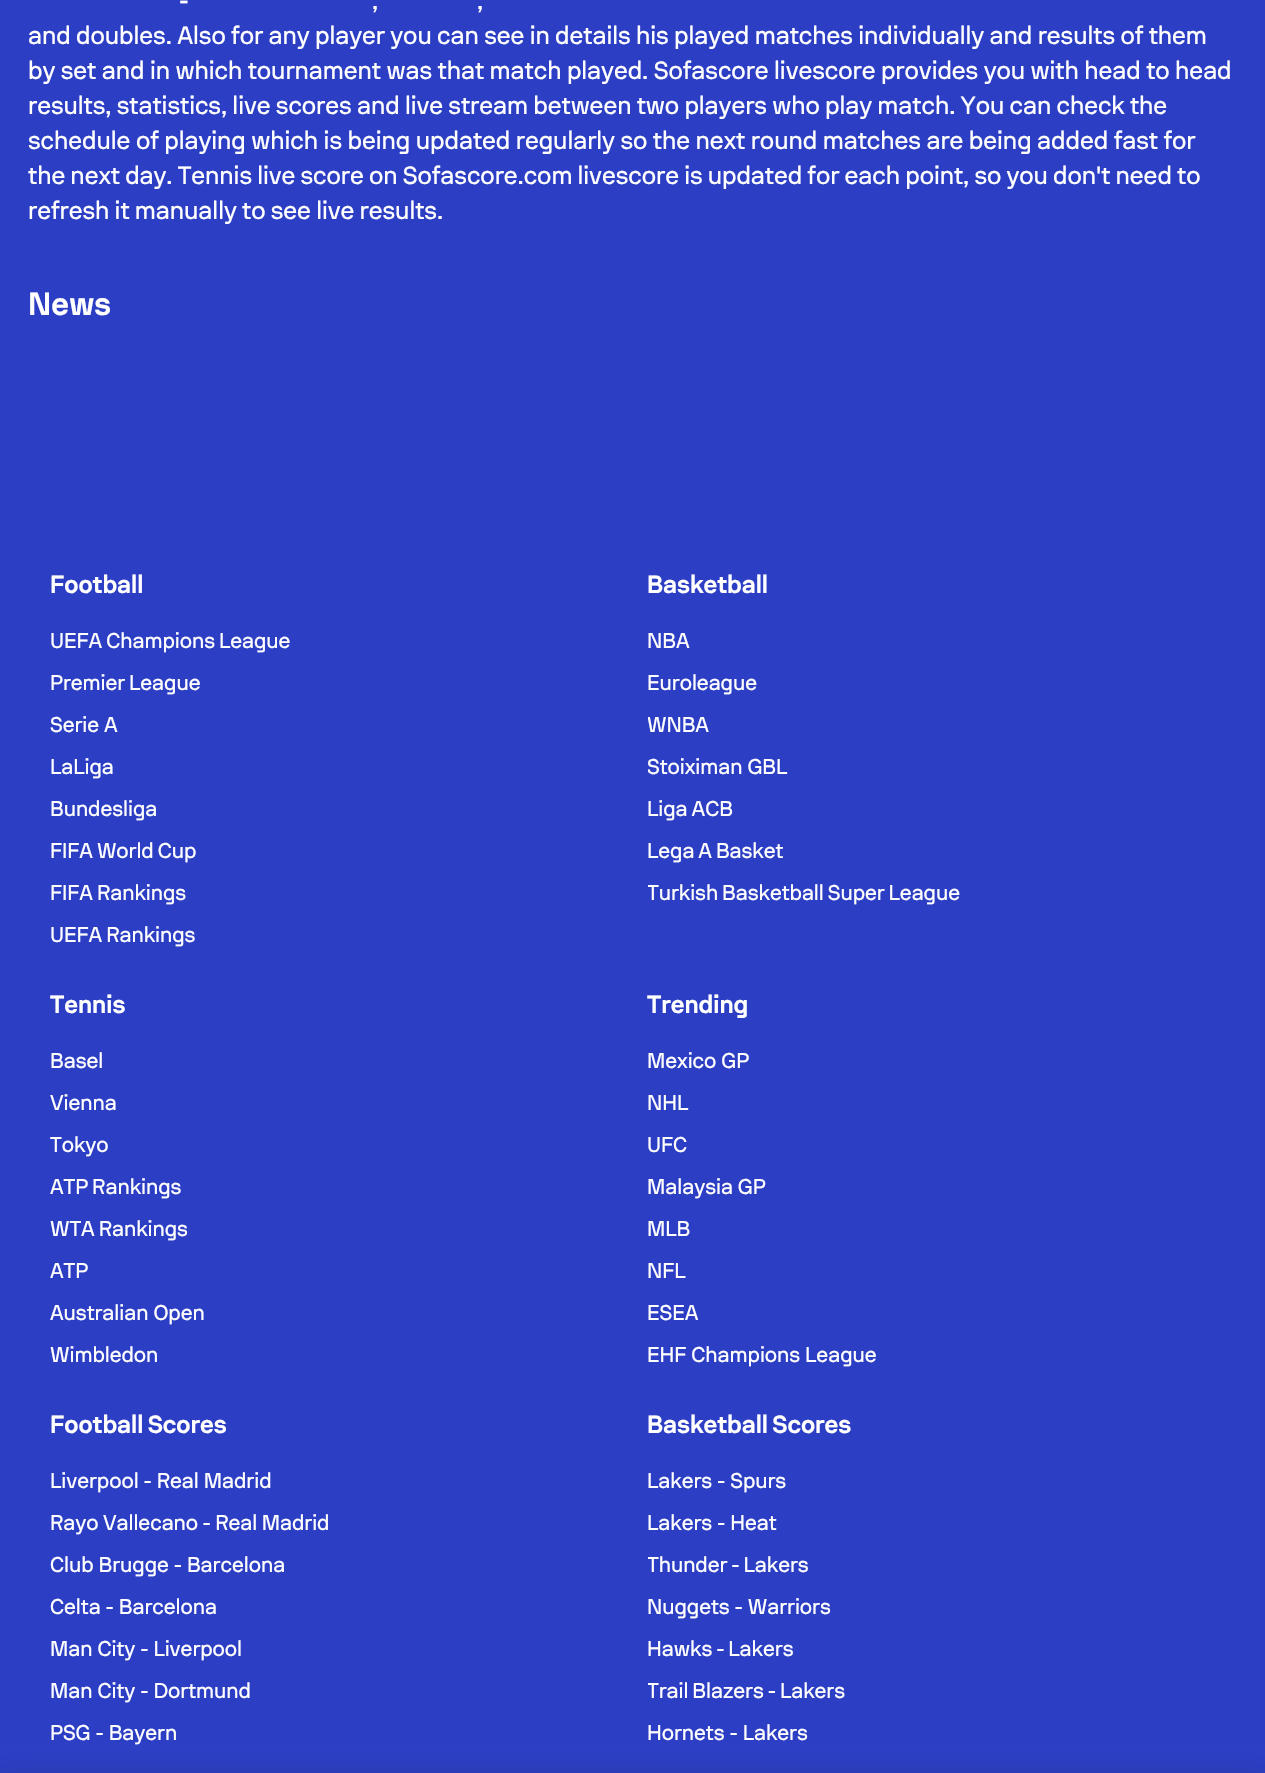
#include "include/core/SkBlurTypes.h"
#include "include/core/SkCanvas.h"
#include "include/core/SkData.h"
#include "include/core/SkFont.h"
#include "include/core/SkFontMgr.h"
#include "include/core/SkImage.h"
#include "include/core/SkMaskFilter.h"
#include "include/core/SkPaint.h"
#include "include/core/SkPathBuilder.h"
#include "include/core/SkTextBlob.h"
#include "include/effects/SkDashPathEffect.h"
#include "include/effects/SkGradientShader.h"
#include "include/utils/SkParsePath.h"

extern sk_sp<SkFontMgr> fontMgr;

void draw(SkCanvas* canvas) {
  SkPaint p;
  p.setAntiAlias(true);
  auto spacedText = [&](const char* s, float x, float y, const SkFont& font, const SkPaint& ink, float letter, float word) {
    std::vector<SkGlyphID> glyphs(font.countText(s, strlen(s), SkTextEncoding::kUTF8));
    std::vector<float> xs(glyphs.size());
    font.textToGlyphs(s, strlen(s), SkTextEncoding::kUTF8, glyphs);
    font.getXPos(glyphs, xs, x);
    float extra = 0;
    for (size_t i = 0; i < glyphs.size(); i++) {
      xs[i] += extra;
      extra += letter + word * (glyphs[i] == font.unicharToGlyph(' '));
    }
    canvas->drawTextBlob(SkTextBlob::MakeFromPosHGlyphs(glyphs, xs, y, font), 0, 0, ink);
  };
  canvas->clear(SkColorSetRGB(44, 62, 196));
  p.setColor(SkColorSetARGB(41, 34, 34, 38));
  p.setMaskFilter(SkMaskFilter::MakeBlur(kNormal_SkBlurStyle, 14));
  canvas->drawRect(SkRect::MakeLTRB(-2, 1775, 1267, 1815), p);
  p.setMaskFilter(nullptr);
  SkFont font1(fontMgr->matchFamilyStyle("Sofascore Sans", SkFontStyle::Normal()), 24.5f);
  font1.setSubpixel(true);
  p.setColor(SK_ColorWHITE);
  spacedText("-", 179, 9, font1, p, -0.05f, 0);
  spacedText(",", 372, 9, font1, p, -0.05f, 0);
  spacedText(",", 477, 9, font1, p, -0.05f, 0);
  spacedText("and doubles. Also for any player you can see in details his played matches individually and results of them", 28, 44, font1, p, -0.05f, -0.4f);
  spacedText("by set and in which tournament was that match played. Sofascore livescore provides you with head to head", 28, 79, font1, p, -0.05f, -0.3f);
  spacedText("results, statistics, live scores and live stream between two players who play match. You can check the", 28, 114, font1, p, -0.05f, -0.5f);
  spacedText("schedule of playing which is being updated regularly so the next round matches are being added fast for", 28, 149, font1, p, -0.05f, -0.25f);
  spacedText("the next day. Tennis live score on Sofascore.com livescore is updated for each point, so you don't need to", 28, 184, font1, p, -0.05f, -0.6f);
  spacedText("refresh it manually to see live results.", 28, 219, font1, p, -0.05f, -0.5f);
  SkFont font2(fontMgr->matchFamilyStyle("Sofascore Sans", SkFontStyle::Bold()), 31.5f);
  font2.setSubpixel(true);
  canvas->drawString("News", 28, 315, font2, p);
  SkFont font3(fontMgr->matchFamilyStyle("Sofascore Sans", SkFontStyle::Bold()), 24.5f);
  font3.setSubpixel(true);
  spacedText("Football", 50, 593, font3, p, -0.05f, 0);
  SkFont font4(fontMgr->matchFamilyStyle("Sofascore Sans", SkFontStyle::Normal()), 21);
  font4.setSubpixel(true);
  spacedText("UEFA Champions League", 50, 648, font4, p, -0.05f, -1);
  spacedText("Premier League", 50, 690, font4, p, -0.05f, -1);
  spacedText("Serie A", 50, 732, font4, p, -0.05f, 0);
  spacedText("LaLiga", 50, 774, font4, p, -0.05f, 0);
  spacedText("Bundesliga", 50, 816, font4, p, -0.05f, 0);
  spacedText("FIFA World Cup", 50, 858, font4, p, -0.05f, -1);
  spacedText("FIFA Rankings", 50, 900, font4, p, -0.05f, -1);
  spacedText("UEFA Rankings", 50, 942, font4, p, -0.05f, -1);
  spacedText("Basketball", 647, 593, font3, p, -0.05f, 0);
  spacedText("NBA", 647, 648, font4, p, -0.05f, 0);
  spacedText("Euroleague", 647, 690, font4, p, -0.05f, 0);
  canvas->save();
  canvas->clipRect(SkRect::MakeLTRB(648, 711, 1215, 739));
  spacedText("WNBA", 647, 732, font4, p, -0.05f, 0);
  canvas->restore();
  canvas->save();
  canvas->clipRect(SkRect::MakeLTRB(648, 753, 1215, 781));
  spacedText("Stoiximan GBL", 647, 774, font4, p, -0.05f, 0);
  canvas->restore();
  spacedText("Liga ACB", 647, 816, font4, p, -0.05f, -1);
  spacedText("Lega A Basket", 647, 858, font4, p, -0.05f, -1);
  canvas->save();
  canvas->clipRect(SkRect::MakeLTRB(648, 879, 1215, 907));
  spacedText("Turkish Basketball Super League", 647, 900, font4, p, -0.05f, -1);
  canvas->restore();
  spacedText("Tennis", 50, 1013, font3, p, -0.05f, 0);
  spacedText("Basel", 50, 1068, font4, p, -0.05f, 0);
  spacedText("Vienna", 50, 1110, font4, p, -0.05f, 0);
  spacedText("Tokyo", 50, 1152, font4, p, -0.05f, 0);
  spacedText("ATP Rankings", 50, 1194, font4, p, -0.05f, -1);
  spacedText("WTA Rankings", 50, 1236, font4, p, -0.05f, -1);
  spacedText("ATP", 50, 1278, font4, p, -0.05f, 0);
  spacedText("Australian Open", 50, 1320, font4, p, -0.05f, 0);
  spacedText("Wimbledon", 50, 1362, font4, p, -0.05f, 0);
  spacedText("Trending", 647, 1013, font3, p, -0.05f, 0);
  spacedText("Mexico GP", 647, 1068, font4, p, -0.05f, 0);
  spacedText("NHL", 647, 1110, font4, p, -0.05f, 0);
  spacedText("UFC", 647, 1152, font4, p, -0.05f, 0);
  spacedText("Malaysia GP", 647, 1194, font4, p, -0.05f, 0);
  spacedText("MLB", 647, 1236, font4, p, -0.05f, 0);
  spacedText("NFL", 647, 1278, font4, p, -0.05f, 0);
  spacedText("ESEA", 647, 1320, font4, p, -0.05f, 0);
  spacedText("EHF Champions League", 647, 1362, font4, p, -0.05f, 0);
  spacedText("Football Scores", 50, 1433, font3, p, -0.05f, -1);
  spacedText("Liverpool - Real Madrid", 50, 1488, font4, p, -0.05f, 0);
  spacedText("Rayo Vallecano - Real Madrid", 50, 1530, font4, p, -0.05f, -0.5f);
  spacedText("Club Brugge - Barcelona", 50, 1572, font4, p, -0.05f, 0);
  spacedText("Celta - Barcelona", 50, 1614, font4, p, -0.05f, 0);
  spacedText("Man City - Liverpool", 50, 1656, font4, p, -0.05f, 0);
  spacedText("Man City - Dortmund", 50, 1698, font4, p, -0.05f, 0);
  spacedText("PSG - Bayern", 50, 1740, font4, p, -0.05f, 0);
  spacedText("Basketball Scores", 647, 1433, font3, p, -0.05f, -1);
  spacedText("Lakers - Spurs", 647, 1488, font4, p, -0.05f, 0);
  spacedText("Lakers - Heat", 647, 1530, font4, p, -0.05f, 0);
  canvas->save();
  canvas->clipRect(SkRect::MakeLTRB(648, 1551, 1215, 1579));
  spacedText("Thunder - Lakers", 647, 1572, font4, p, -0.05f, -1);
  canvas->restore();
  spacedText("Nuggets - Warriors", 647, 1614, font4, p, -0.05f, 0);
  spacedText("Hawks - Lakers", 647, 1656, font4, p, -0.05f, -1);
  canvas->save();
  canvas->clipRect(SkRect::MakeLTRB(648, 1677, 1215, 1705));
  spacedText("Trail Blazers - Lakers", 647, 1698, font4, p, -0.05f, -1);
  canvas->restore();
  spacedText("Hornets - Lakers", 647, 1740, font4, p, -0.05f, 0);
}
